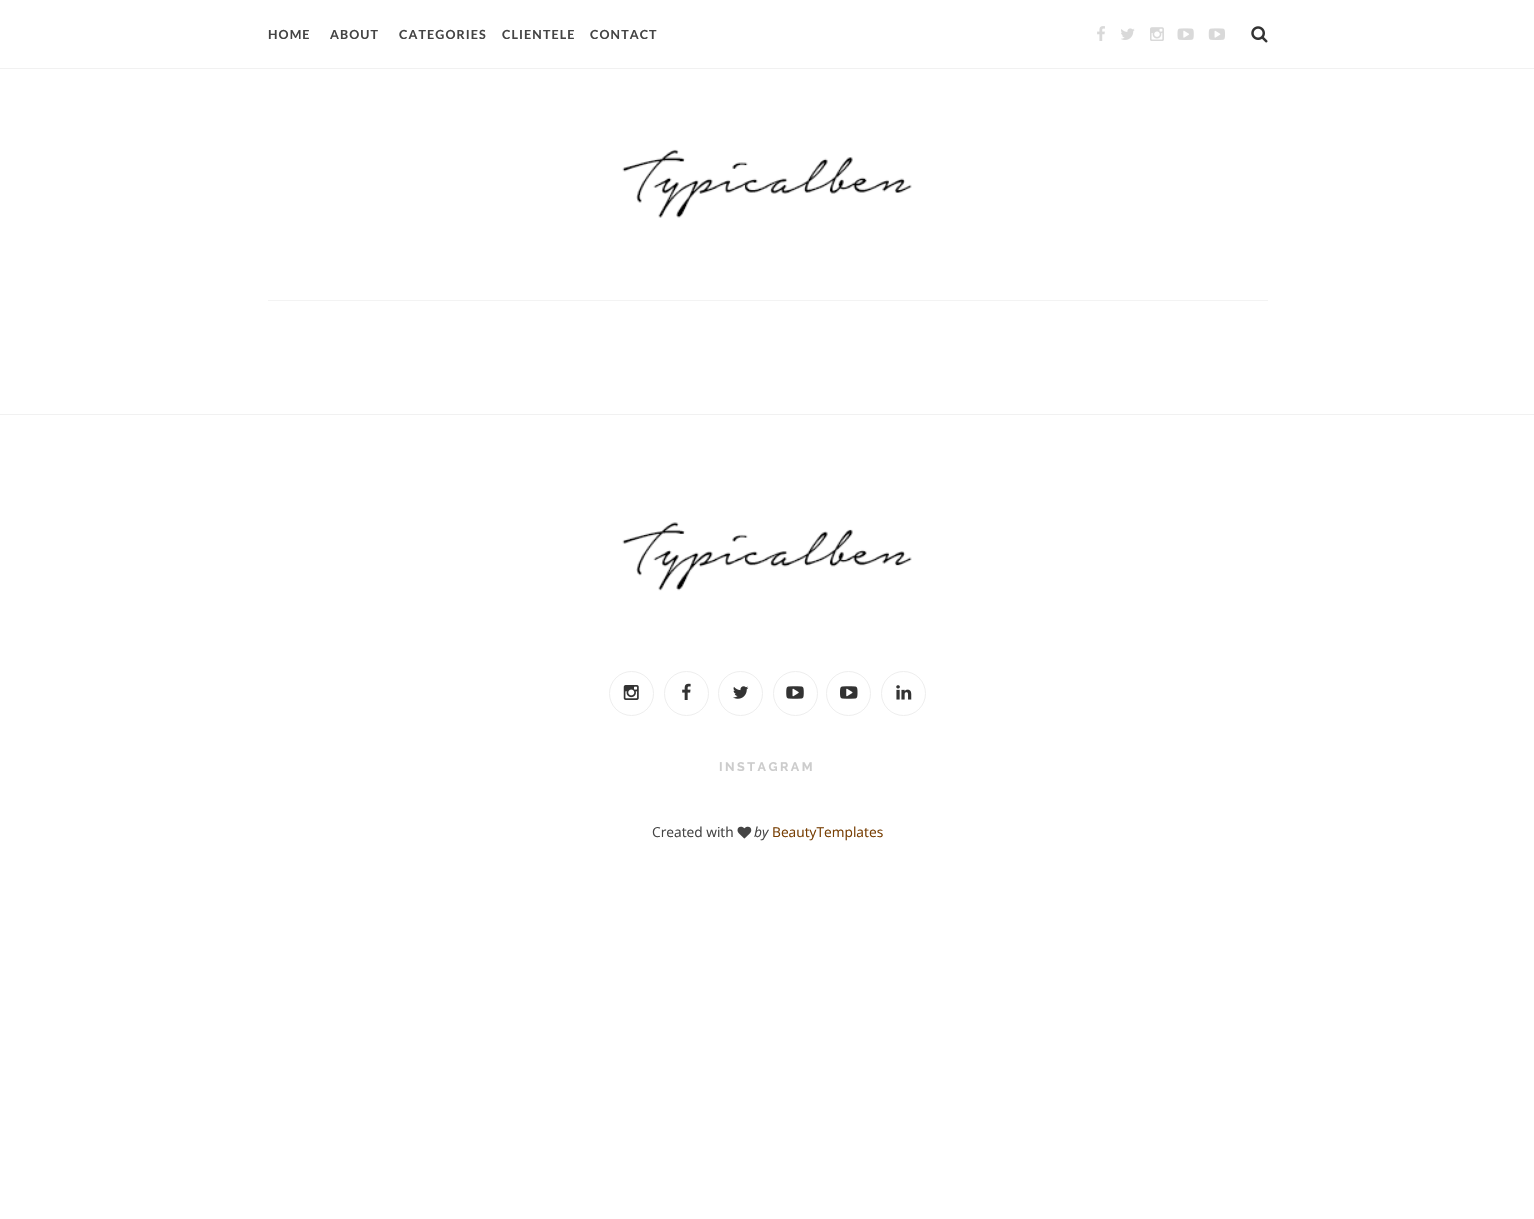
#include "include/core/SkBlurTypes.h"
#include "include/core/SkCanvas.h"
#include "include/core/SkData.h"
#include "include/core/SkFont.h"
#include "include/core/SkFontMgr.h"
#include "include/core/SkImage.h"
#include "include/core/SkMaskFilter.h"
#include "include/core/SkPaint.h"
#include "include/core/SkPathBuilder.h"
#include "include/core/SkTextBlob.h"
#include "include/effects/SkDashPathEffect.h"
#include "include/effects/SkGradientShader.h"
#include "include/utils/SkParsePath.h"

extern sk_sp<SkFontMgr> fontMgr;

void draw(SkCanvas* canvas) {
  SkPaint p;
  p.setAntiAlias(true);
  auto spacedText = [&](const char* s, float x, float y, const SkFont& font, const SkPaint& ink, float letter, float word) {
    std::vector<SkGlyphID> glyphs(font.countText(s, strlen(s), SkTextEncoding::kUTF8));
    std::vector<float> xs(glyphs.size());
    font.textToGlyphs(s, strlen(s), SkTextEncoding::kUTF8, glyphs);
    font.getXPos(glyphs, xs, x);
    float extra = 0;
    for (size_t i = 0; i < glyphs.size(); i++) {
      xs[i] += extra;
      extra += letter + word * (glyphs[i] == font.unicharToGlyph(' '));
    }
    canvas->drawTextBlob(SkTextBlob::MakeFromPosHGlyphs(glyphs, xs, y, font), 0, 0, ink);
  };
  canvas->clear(SK_ColorWHITE);
  p.setColor(SkColorSetRGB(241, 241, 241));
  canvas->drawRect(SkRect::MakeLTRB(0, 68, 1534, 69), p);
  canvas->drawImageRect(SkImages::DeferredFromEncodedData(SkData::MakeFromFileName("images/1.png")), SkRect::MakeLTRB(1097, 26, 1105, 41), SkSamplingOptions());
  canvas->drawImageRect(SkImages::DeferredFromEncodedData(SkData::MakeFromFileName("images/2.png")), SkRect::MakeLTRB(1121, 28, 1135, 40), SkSamplingOptions());
  canvas->drawImageRect(SkImages::DeferredFromEncodedData(SkData::MakeFromFileName("images/3.png")), SkRect::MakeLTRB(1150, 27, 1164, 41), SkSamplingOptions());
  canvas->drawImageRect(SkImages::DeferredFromEncodedData(SkData::MakeFromFileName("images/4.png")), SkRect::MakeLTRB(1177, 28, 1194, 40), SkSamplingOptions());
  canvas->drawImageRect(SkImages::DeferredFromEncodedData(SkData::MakeFromFileName("images/5.png")), SkRect::MakeLTRB(1208, 28, 1225, 40), SkSamplingOptions());
  canvas->drawImageRect(SkImages::DeferredFromEncodedData(SkData::MakeFromFileName("images/6.png")), SkRect::MakeLTRB(1251, 26, 1268, 43), SkSamplingOptions());
  canvas->drawImageRect(SkImages::DeferredFromEncodedData(SkData::MakeFromFileName("images/7.png")), SkRect::MakeLTRB(622, 149, 912, 218), SkSamplingOptions());
  p.setColor(SkColorSetRGB(243, 243, 243));
  canvas->drawRect(SkRect::MakeLTRB(268, 300, 1268, 301), p);
  p.setColor(SkColorSetRGB(241, 241, 241));
  canvas->drawRect(SkRect::MakeLTRB(0, 414, 1534, 415), p);
  canvas->drawImageRect(SkImages::DeferredFromEncodedData(SkData::MakeFromFileName("images/8.png")), SkRect::MakeLTRB(622, 522, 912, 591), SkSamplingOptions());
  p.setStyle(SkPaint::kStroke_Style);
  p.setStrokeWidth(1);
  p.setColor(SkColorSetRGB(238, 238, 238));
  canvas->drawCircle(631.5f, 693.5f, 22, p);
  canvas->drawImageRect(SkImages::DeferredFromEncodedData(SkData::MakeFromFileName("images/9.png")), SkRect::MakeLTRB(623, 685, 639, 700), SkSamplingOptions());
  canvas->drawCircle(686.5f, 693.5f, 22, p);
  canvas->drawImageRect(SkImages::DeferredFromEncodedData(SkData::MakeFromFileName("images/10.png")), SkRect::MakeLTRB(682, 683, 691, 700), SkSamplingOptions());
  canvas->drawCircle(740.5f, 693.5f, 22, p);
  canvas->drawImageRect(SkImages::DeferredFromEncodedData(SkData::MakeFromFileName("images/11.png")), SkRect::MakeLTRB(733, 686, 749, 699), SkSamplingOptions());
  canvas->drawCircle(795.5f, 693.5f, 22, p);
  canvas->drawImageRect(SkImages::DeferredFromEncodedData(SkData::MakeFromFileName("images/12.png")), SkRect::MakeLTRB(786, 686, 804, 699), SkSamplingOptions());
  canvas->drawCircle(848.5f, 693.5f, 22, p);
  canvas->drawImageRect(SkImages::DeferredFromEncodedData(SkData::MakeFromFileName("images/13.png")), SkRect::MakeLTRB(840, 686, 858, 699), SkSamplingOptions());
  canvas->drawCircle(903.5f, 693.5f, 22, p);
  canvas->drawImageRect(SkImages::DeferredFromEncodedData(SkData::MakeFromFileName("images/14.png")), SkRect::MakeLTRB(896, 685, 912, 700), SkSamplingOptions());
  canvas->drawImageRect(SkImages::DeferredFromEncodedData(SkData::MakeFromFileName("images/15.png")), SkRect::MakeLTRB(737, 826, 752, 839), SkSamplingOptions());
  SkFont font1(fontMgr->matchFamilyStyle("Lato", SkFontStyle::Bold()), 12.5f);
  font1.setSubpixel(true);
  p.setStyle(SkPaint::kFill_Style);
  p.setColor(SkColorSetRGB(68, 68, 68));
  spacedText("HOME", 268, 39, font1, p, 1.1f, 0);
  spacedText("ABOUT", 330, 39, font1, p, 1.1f, 0);
  spacedText("CATEGORIES", 399, 39, font1, p, 1.1f, 0);
  spacedText("CLIENTELE", 502, 39, font1, p, 1.1f, 0);
  spacedText("CONTACT", 590, 39, font1, p, 1.1f, 0);
  SkFont font2(fontMgr->matchFamilyStyle("Raleway", SkFontStyle::Bold()), 12.5f);
  font2.setSubpixel(true);
  p.setColor(SkColorSetRGB(204, 204, 204));
  spacedText("INSTAGRAM", 719, 771, font2, p, 2.5f, 0);
  SkFont font3(fontMgr->matchFamilyStyle("Open Sans", SkFontStyle::Normal()), 13.75f);
  font3.setSubpixel(true);
  p.setColor(SkColorSetRGB(68, 68, 68));
  canvas->drawString("Created with", 652, 837, font3, p);
  SkFont font4(fontMgr->matchFamilyStyle("Open Sans", SkFontStyle::Italic()), 13.75f);
  font4.setSubpixel(true);
  canvas->drawString("by", 754, 837, font4, p);
  p.setColor(SkColorSetRGB(120, 63, 4));
  canvas->drawString("BeautyTemplates", 772, 837, font3, p);
}
